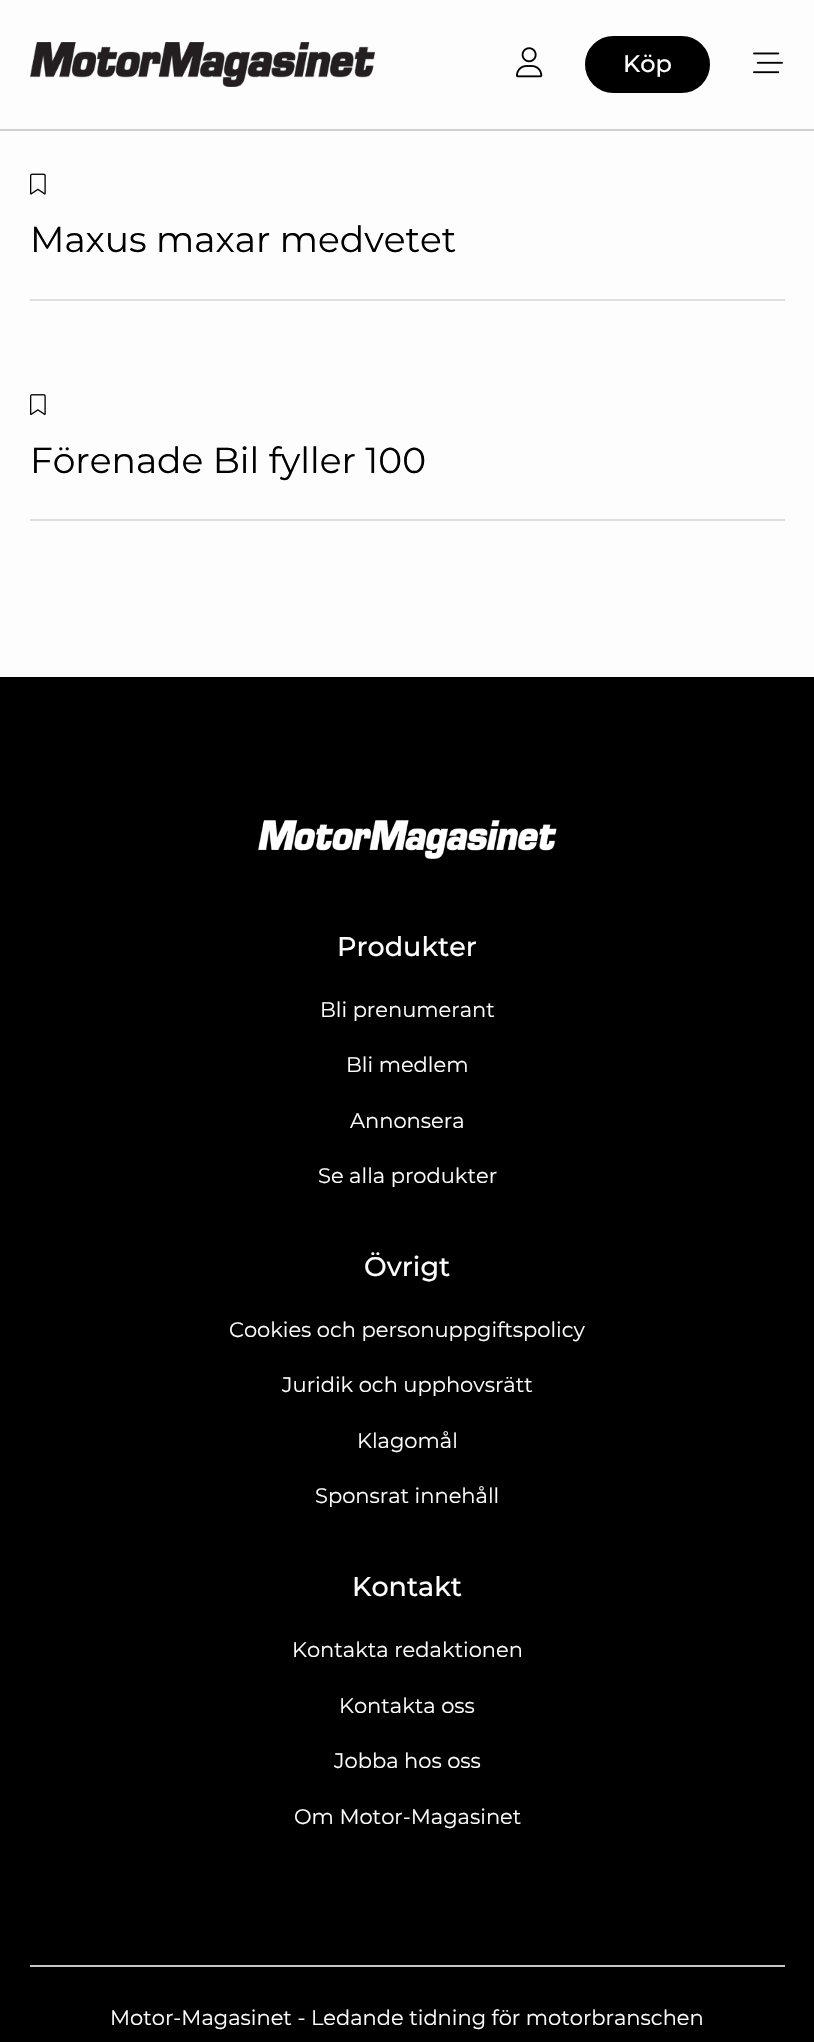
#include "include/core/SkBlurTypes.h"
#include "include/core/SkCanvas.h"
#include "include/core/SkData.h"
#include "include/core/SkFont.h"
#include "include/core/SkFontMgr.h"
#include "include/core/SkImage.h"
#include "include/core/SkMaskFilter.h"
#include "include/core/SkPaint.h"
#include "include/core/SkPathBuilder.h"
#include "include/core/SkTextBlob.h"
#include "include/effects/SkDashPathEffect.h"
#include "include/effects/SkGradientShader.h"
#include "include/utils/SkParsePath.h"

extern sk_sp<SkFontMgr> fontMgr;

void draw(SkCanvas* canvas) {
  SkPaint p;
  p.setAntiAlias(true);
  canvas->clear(SkColorSetRGB(253, 253, 253));
  p.setColor(SkColorSetRGB(209, 209, 209));
  canvas->drawRect(SkRect::MakeLTRB(0, 129, 814, 131), p);
  canvas->drawImageRect(SkImages::DeferredFromEncodedData(SkData::MakeFromFileName("images/1.png")), SkRect::MakeLTRB(30, 42, 375, 87), SkSamplingOptions());
  canvas->drawImageRect(SkImages::DeferredFromEncodedData(SkData::MakeFromFileName("images/2.png")), SkRect::MakeLTRB(516, 47, 543, 78), SkSamplingOptions());
  p.setColor(SK_ColorBLACK);
  canvas->drawRoundRect(SkRect::MakeLTRB(586, 37, 709, 92), 27.5f, 27.5f, p);
  p.setStyle(SkPaint::kStroke_Style);
  p.setStrokeWidth(2);
  canvas->drawRoundRect(SkRect::MakeLTRB(586, 37, 709, 92), 27.5f, 27.5f, p);
  canvas->drawImageRect(SkImages::DeferredFromEncodedData(SkData::MakeFromFileName("images/3.png")), SkRect::MakeLTRB(753, 52, 783, 74), SkSamplingOptions());
  canvas->drawImageRect(SkImages::DeferredFromEncodedData(SkData::MakeFromFileName("images/4.png")), SkRect::MakeLTRB(30, 173, 46, 195), SkSamplingOptions());
  p.setStyle(SkPaint::kFill_Style);
  p.setColor(SkColorSetRGB(223, 222, 221));
  canvas->drawRect(SkRect::MakeLTRB(30, 299, 785, 301), p);
  canvas->drawImageRect(SkImages::DeferredFromEncodedData(SkData::MakeFromFileName("images/5.png")), SkRect::MakeLTRB(30, 394, 46, 416), SkSamplingOptions());
  canvas->drawRect(SkRect::MakeLTRB(30, 519, 785, 521), p);
  p.setColor(SK_ColorBLACK);
  canvas->drawRect(SkRect::MakeLTRB(0, 677, 814, 2042), p);
  canvas->drawImageRect(SkImages::DeferredFromEncodedData(SkData::MakeFromFileName("images/6.png")), SkRect::MakeLTRB(258, 820, 557, 859), SkSamplingOptions());
  p.setColor(SkColorSetRGB(198, 197, 196));
  canvas->drawRect(SkRect::MakeLTRB(30, 1965, 785, 1967), p);
  SkFont font1(fontMgr->matchFamilyStyle("Montserrat", SkFontStyle(500, SkFontStyle::kNormal_Width, SkFontStyle::kUpright_Slant)), 24);
  font1.setSubpixel(true);
  p.setColor(SkColorSetRGB(253, 253, 253));
  canvas->drawString("Köp", 623, 72, font1, p);
  SkFont font2(fontMgr->matchFamilyStyle("Montserrat", SkFontStyle::Normal()), 36);
  font2.setSubpixel(true);
  p.setColor(SK_ColorBLACK);
  canvas->drawString("Maxus maxar medvetet", 30, 252, font2, p);
  canvas->drawString("Förenade Bil fyller 100", 30, 473, font2, p);
  SkFont font3(fontMgr->matchFamilyStyle("Montserrat", SkFontStyle(500, SkFontStyle::kNormal_Width, SkFontStyle::kUpright_Slant)), 27);
  font3.setSubpixel(true);
  p.setColor(SkColorSetRGB(253, 253, 253));
  canvas->drawString("Produkter", 337, 956, font3, p);
  SkFont font4(fontMgr->matchFamilyStyle("Montserrat", SkFontStyle::Normal()), 21);
  font4.setSubpixel(true);
  canvas->drawString("Bli prenumerant", 320, 1017, font4, p);
  canvas->drawString("Bli medlem", 346, 1072, font4, p);
  canvas->drawString("Annonsera", 350, 1128, font4, p);
  canvas->drawString("Se alla produkter", 318, 1183, font4, p);
  canvas->drawString("Övrigt", 364, 1276, font3, p);
  canvas->drawString("Cookies och personuppgiftspolicy", 229, 1337, font4, p);
  canvas->drawString("Juridik och upphovsrätt", 282, 1392, font4, p);
  canvas->drawString("Klagomål", 357, 1448, font4, p);
  canvas->drawString("Sponsrat innehåll", 315, 1503, font4, p);
  canvas->drawString("Kontakt", 352, 1596, font3, p);
  canvas->drawString("Kontakta redaktionen", 292, 1657, font4, p);
  canvas->drawString("Kontakta oss", 339, 1713, font4, p);
  canvas->drawString("Jobba hos oss", 334, 1768, font4, p);
  canvas->drawString("Om Motor-Magasinet", 294, 1824, font4, p);
  canvas->drawString("Motor-Magasinet - Ledande tidning för motorbranschen", 110, 2025, font4, p);
}
